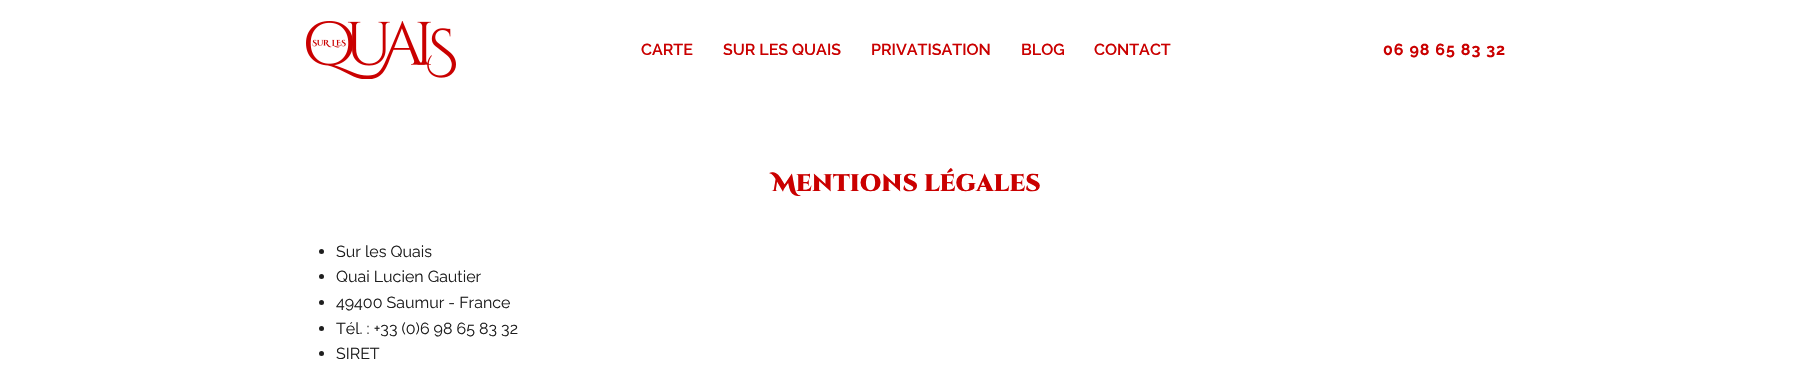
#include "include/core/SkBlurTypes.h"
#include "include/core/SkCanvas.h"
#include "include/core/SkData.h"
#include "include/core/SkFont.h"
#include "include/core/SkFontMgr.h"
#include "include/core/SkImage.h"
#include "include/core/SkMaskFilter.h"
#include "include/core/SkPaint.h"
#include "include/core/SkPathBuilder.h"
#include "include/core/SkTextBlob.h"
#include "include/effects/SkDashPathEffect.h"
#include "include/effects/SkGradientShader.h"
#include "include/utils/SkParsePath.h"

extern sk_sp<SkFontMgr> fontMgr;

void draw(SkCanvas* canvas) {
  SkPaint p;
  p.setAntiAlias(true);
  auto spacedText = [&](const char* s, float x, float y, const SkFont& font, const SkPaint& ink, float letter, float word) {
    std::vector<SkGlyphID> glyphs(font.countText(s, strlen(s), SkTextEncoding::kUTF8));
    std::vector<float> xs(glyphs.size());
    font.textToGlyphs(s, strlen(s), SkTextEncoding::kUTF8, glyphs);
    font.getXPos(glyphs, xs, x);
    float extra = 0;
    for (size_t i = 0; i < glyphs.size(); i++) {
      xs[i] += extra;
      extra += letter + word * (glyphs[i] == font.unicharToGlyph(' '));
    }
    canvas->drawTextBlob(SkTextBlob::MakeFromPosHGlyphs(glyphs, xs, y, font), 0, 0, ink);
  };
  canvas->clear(SK_ColorWHITE);
  canvas->drawImageRect(SkImages::DeferredFromEncodedData(SkData::MakeFromFileName("images/1.png")), SkRect::MakeLTRB(306, 21, 456, 79), SkSamplingOptions());
  p.setColor(SkColorSetRGB(30, 30, 30));
  canvas->drawCircle(321.5f, 251.5f, 2.5f, p);
  canvas->drawCircle(321.5f, 276.5f, 2.5f, p);
  canvas->drawCircle(321.5f, 302.5f, 2.5f, p);
  canvas->drawCircle(321.5f, 328.5f, 2.5f, p);
  canvas->drawCircle(321.5f, 353.5f, 2.5f, p);
  SkFont font1(fontMgr->matchFamilyStyle("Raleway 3", SkFontStyle(100, SkFontStyle::kNormal_Width, SkFontStyle::kUpright_Slant)), 16);
  font1.setSubpixel(true);
  p.setColor(SkColorSetRGB(202, 0, 0));
  canvas->drawString("CARTE", 641, 55, font1, p);
  canvas->drawString("SUR LES QUAIS", 723, 55, font1, p);
  canvas->drawString("PRIVATISATION", 871, 55, font1, p);
  canvas->drawString("BLOG", 1021, 55, font1, p);
  canvas->drawString("CONTACT", 1094, 55, font1, p);
  SkFont font2(fontMgr->matchFamilyStyle("Raleway", SkFontStyle(100, SkFontStyle::kNormal_Width, SkFontStyle::kUpright_Slant)), 16);
  font2.setSubpixel(true);
  spacedText("06 98 65 83 32", 1383, 55, font2, p, 1, 0);
  SkFont font3(fontMgr->matchFamilyStyle("Cinzel Decorative", SkFontStyle(900, SkFontStyle::kNormal_Width, SkFontStyle::kUpright_Slant)), 24);
  font3.setSubpixel(true);
  canvas->drawString("Mentions légales", 772, 191, font3, p);
  SkFont font4(fontMgr->matchFamilyStyle("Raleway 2", SkFontStyle(100, SkFontStyle::kNormal_Width, SkFontStyle::kUpright_Slant)), 16);
  font4.setSubpixel(true);
  p.setColor(SkColorSetRGB(30, 30, 30));
  canvas->drawString("Sur les Quais", 336, 257, font4, p);
  canvas->drawString("Quai Lucien Gautier", 336, 282, font4, p);
  canvas->drawString("49400 Saumur - France", 336, 308, font4, p);
  canvas->drawString("Tél. : +33 (0)6 98 65 83 32", 336, 334, font4, p);
  canvas->drawString("SIRET", 336, 359, font4, p);
}
